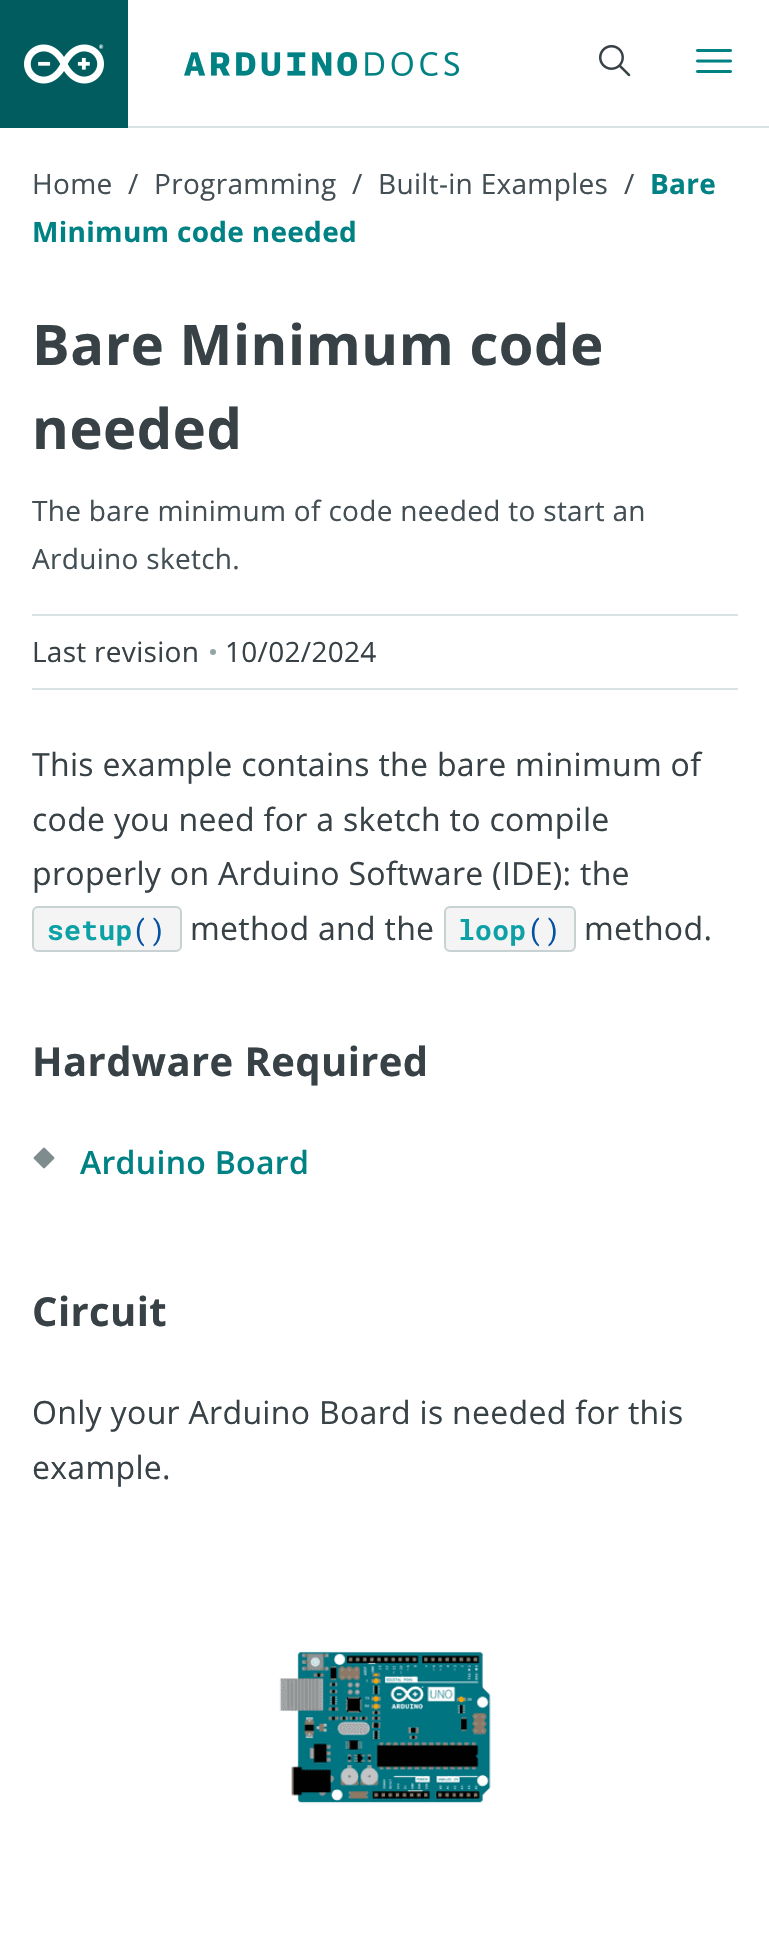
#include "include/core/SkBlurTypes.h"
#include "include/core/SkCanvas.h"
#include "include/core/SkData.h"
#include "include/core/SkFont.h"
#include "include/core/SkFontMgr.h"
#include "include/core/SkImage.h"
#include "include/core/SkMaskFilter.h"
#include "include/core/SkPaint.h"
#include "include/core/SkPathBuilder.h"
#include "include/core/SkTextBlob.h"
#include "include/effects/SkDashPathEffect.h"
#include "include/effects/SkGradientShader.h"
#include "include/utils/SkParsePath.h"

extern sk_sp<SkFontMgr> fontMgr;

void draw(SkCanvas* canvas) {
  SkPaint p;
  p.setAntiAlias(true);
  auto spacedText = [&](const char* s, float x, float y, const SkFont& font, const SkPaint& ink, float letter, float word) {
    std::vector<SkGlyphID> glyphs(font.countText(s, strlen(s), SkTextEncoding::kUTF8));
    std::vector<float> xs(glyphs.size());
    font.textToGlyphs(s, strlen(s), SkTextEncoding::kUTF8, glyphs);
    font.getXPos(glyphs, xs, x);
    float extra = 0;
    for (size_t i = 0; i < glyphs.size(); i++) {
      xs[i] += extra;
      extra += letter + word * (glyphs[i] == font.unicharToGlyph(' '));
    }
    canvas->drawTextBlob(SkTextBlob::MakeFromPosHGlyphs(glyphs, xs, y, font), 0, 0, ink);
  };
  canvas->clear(SK_ColorWHITE);
  p.setColor(SkColorSetRGB(218, 227, 227));
  canvas->drawRect(SkRect::MakeLTRB(128, 126, 769, 128), p);
  p.setColor(SkColorSetRGB(0, 92, 95));
  canvas->drawRect(SkRect::MakeLTRB(0, 0, 128, 128), p);
  canvas->drawImageRect(SkImages::DeferredFromEncodedData(SkData::MakeFromFileName("images/1.png")), SkRect::MakeLTRB(24, 44, 104, 84), SkSamplingOptions());
  canvas->drawImageRect(SkImages::DeferredFromEncodedData(SkData::MakeFromFileName("images/2.png")), SkRect::MakeLTRB(184, 52, 459, 76), SkSamplingOptions());
  canvas->drawImageRect(SkImages::DeferredFromEncodedData(SkData::MakeFromFileName("images/3.png")), SkRect::MakeLTRB(599, 45, 631, 77), SkSamplingOptions());
  canvas->drawImageRect(SkImages::DeferredFromEncodedData(SkData::MakeFromFileName("images/4.png")), SkRect::MakeLTRB(696, 49, 732, 73), SkSamplingOptions());
  p.setColor(SkColorSetRGB(218, 227, 227));
  canvas->drawRect(SkRect::MakeLTRB(32, 614, 738, 616), p);
  canvas->drawRect(SkRect::MakeLTRB(32, 688, 738, 690), p);
  p.setColor(SkColorSetRGB(149, 165, 166));
  canvas->drawCircle(213, 652, 3, p);
  p.setColor(SkColorSetRGB(244, 244, 244));
  canvas->drawRoundRect(SkRect::MakeLTRB(33, 907, 181, 951), 5, 5, p);
  p.setStyle(SkPaint::kStroke_Style);
  p.setStrokeWidth(2);
  p.setColor(SkColorSetRGB(201, 210, 210));
  canvas->drawRoundRect(SkRect::MakeLTRB(33, 907, 181, 951), 5, 5, p);
  p.setStyle(SkPaint::kFill_Style);
  p.setColor(SkColorSetRGB(244, 244, 244));
  canvas->drawRoundRect(SkRect::MakeLTRB(445, 907, 575, 951), 5, 5, p);
  p.setStyle(SkPaint::kStroke_Style);
  p.setColor(SkColorSetRGB(201, 210, 210));
  canvas->drawRoundRect(SkRect::MakeLTRB(445, 907, 575, 951), 5, 5, p);
  canvas->drawImageRect(SkImages::DeferredFromEncodedData(SkData::MakeFromFileName("images/5.png")), SkRect::MakeLTRB(33, 1147, 55, 1169), SkSamplingOptions());
  canvas->drawImageRect(SkImages::DeferredFromEncodedData(SkData::MakeFromFileName("images/6.png")), SkRect::MakeLTRB(269, 1621, 543, 1836), SkSamplingOptions());
  SkFont font1(fontMgr->matchFamilyStyle("Open Sans", SkFontStyle::Normal()), 28);
  font1.setSubpixel(true);
  p.setStyle(SkPaint::kFill_Style);
  p.setColor(SkColorSetRGB(67, 79, 84));
  spacedText("Home", 32, 194, font1, p, 0.3f, 0);
  spacedText("/", 128, 194, font1, p, 0.3f, 0);
  spacedText("Programming", 154, 194, font1, p, 0.3f, 0);
  spacedText("/", 352, 194, font1, p, 0.3f, 0);
  spacedText("Built-in Examples", 378, 194, font1, p, 0.3f, 0);
  spacedText("/", 624, 194, font1, p, 0.3f, 0);
  SkFont font2(fontMgr->matchFamilyStyle("Open Sans", SkFontStyle::Bold()), 28);
  font2.setSubpixel(true);
  p.setColor(SkColorSetRGB(0, 129, 132));
  spacedText("Bare", 650, 194, font2, p, 0.3f, 0);
  spacedText("Minimum code needed", 32, 242, font2, p, 0.3f, 0);
  SkFont font3(fontMgr->matchFamilyStyle("Open Sans", SkFontStyle::Bold()), 56);
  font3.setSubpixel(true);
  p.setColor(SkColorSetRGB(55, 65, 70));
  spacedText("Bare Minimum code", 32, 365, font3, p, 0.6f, 0);
  spacedText("needed", 32, 449, font3, p, 0.6f, 0);
  p.setColor(SkColorSetRGB(67, 79, 84));
  spacedText("The bare minimum of code needed to start an", 32, 521, font1, p, 0.3f, 0);
  spacedText("Arduino sketch.", 32, 569, font1, p, 0.3f, 0);
  p.setColor(SkColorSetRGB(55, 65, 70));
  spacedText("Last revision", 32, 662, font1, p, 0.3f, 0);
  spacedText("10/02/2024", 225, 662, font1, p, 0.3f, 0);
  SkFont font4(fontMgr->matchFamilyStyle("Open Sans", SkFontStyle::Normal()), 32);
  font4.setSubpixel(true);
  spacedText("This example contains the bare minimum of", 32, 776, font4, p, 0.3f, 0);
  spacedText("code you need for a sketch to compile", 32, 831, font4, p, 0.3f, 0);
  spacedText("properly on Arduino Software (IDE): the", 32, 885, font4, p, 0.3f, 0);
  SkFont font5(fontMgr->matchFamilyStyle("Roboto Mono", SkFontStyle::Bold()), 28);
  font5.setSubpixel(true);
  p.setColor(SkColorSetRGB(12, 161, 166));
  spacedText("setup", 47, 940, font5, p, 0.3f, 0);
  SkFont font6(fontMgr->matchFamilyStyle("Roboto Mono", SkFontStyle::Normal()), 28);
  font6.setSubpixel(true);
  p.setColor(SkColorSetRGB(4, 81, 165));
  spacedText("()", 132, 940, font6, p, 0.3f, 0);
  p.setColor(SkColorSetRGB(55, 65, 70));
  spacedText("method and the", 190, 940, font4, p, 0.3f, 0);
  p.setColor(SkColorSetRGB(12, 161, 166));
  spacedText("loop", 458, 940, font5, p, 0.3f, 0);
  p.setColor(SkColorSetRGB(4, 81, 165));
  spacedText("()", 527, 940, font6, p, 0.3f, 0);
  p.setColor(SkColorSetRGB(55, 65, 70));
  spacedText("method.", 584, 940, font4, p, 0.3f, 0);
  SkFont font7(fontMgr->matchFamilyStyle("Open Sans", SkFontStyle::Bold()), 40);
  font7.setSubpixel(true);
  spacedText("Hardware Required", 32, 1076, font7, p, 0.4f, 0);
  SkFont font8(fontMgr->matchFamilyStyle("Open Sans", SkFontStyle(600, SkFontStyle::kNormal_Width, SkFontStyle::kUpright_Slant)), 32);
  font8.setSubpixel(true);
  p.setColor(SkColorSetRGB(0, 129, 132));
  spacedText("Arduino Board", 80, 1174, font8, p, 0.3f, 0);
  p.setColor(SkColorSetRGB(55, 65, 70));
  spacedText("Circuit", 32, 1326, font7, p, 0.4f, 0);
  spacedText("Only your Arduino Board is needed for this", 32, 1424, font4, p, 0.3f, 0);
  spacedText("example.", 32, 1479, font4, p, 0.3f, 0);
}
